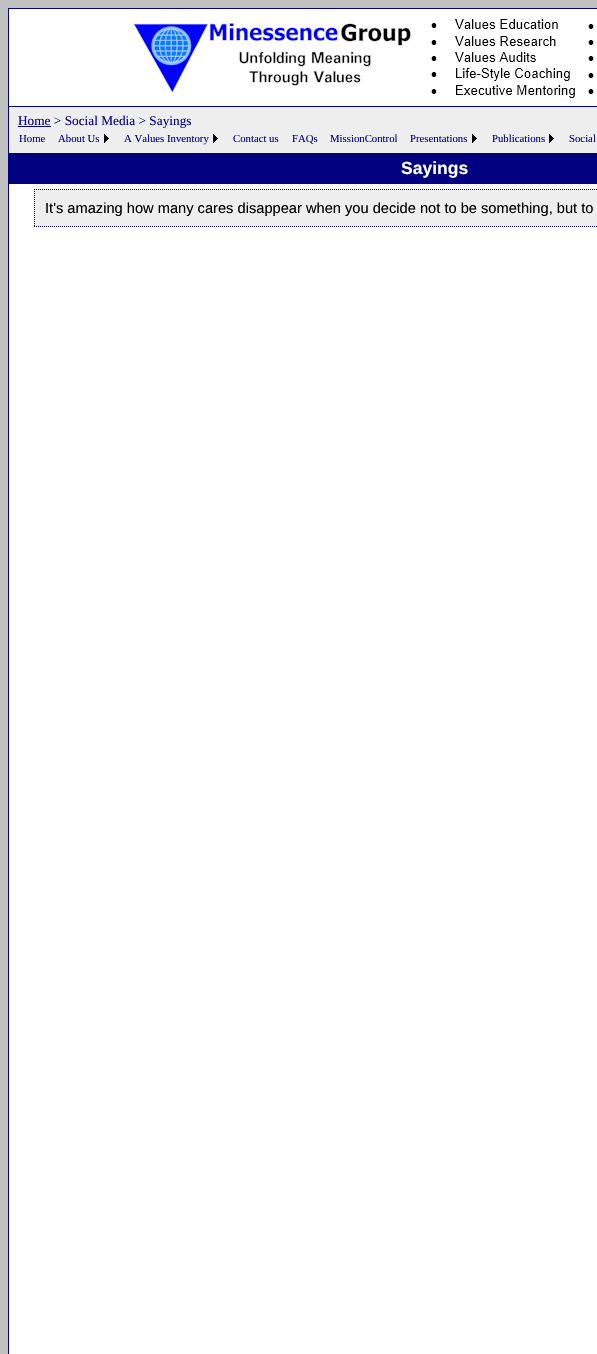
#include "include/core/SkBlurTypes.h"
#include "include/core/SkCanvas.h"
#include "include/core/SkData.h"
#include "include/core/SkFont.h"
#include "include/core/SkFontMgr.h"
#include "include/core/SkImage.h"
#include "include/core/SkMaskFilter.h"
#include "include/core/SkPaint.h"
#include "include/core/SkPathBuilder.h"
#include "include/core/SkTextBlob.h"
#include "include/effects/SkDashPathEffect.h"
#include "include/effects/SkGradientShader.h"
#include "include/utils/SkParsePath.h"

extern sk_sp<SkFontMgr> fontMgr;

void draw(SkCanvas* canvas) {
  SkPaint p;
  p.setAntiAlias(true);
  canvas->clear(SkColorSetRGB(192, 192, 192));
  p.setColor(SK_ColorWHITE);
  canvas->drawRect(SkRect::MakeLTRB(8.5f, 8.5f, 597.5f, 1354.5f), p);
  p.setStyle(SkPaint::kStroke_Style);
  p.setStrokeWidth(1);
  p.setColor(SkColorSetRGB(0, 0, 128));
  canvas->drawRect(SkRect::MakeLTRB(8.5f, 8.5f, 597.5f, 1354.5f), p);
  p.setStyle(SkPaint::kFill_Style);
  canvas->drawRect(SkRect::MakeLTRB(9, 106, 597, 107), p);
  canvas->drawImageRect(SkImages::DeferredFromEncodedData(SkData::MakeFromFileName("images/1.png")), SkRect::MakeLTRB(133, 19, 594, 98), SkSamplingOptions());
  p.setColor(SkColorSetRGB(238, 238, 238));
  canvas->drawRect(SkRect::MakeLTRB(9, 107, 597, 153), p);
  p.setColor(SkColorSetRGB(0, 0, 128));
  canvas->drawRect(SkRect::MakeLTRB(18, 126, 51, 127), p);
  canvas->drawImageRect(SkImages::DeferredFromEncodedData(SkData::MakeFromFileName("images/2.png")), SkRect::MakeLTRB(104, 134, 109, 143), SkSamplingOptions());
  canvas->drawImageRect(SkImages::DeferredFromEncodedData(SkData::MakeFromFileName("images/2.png")), SkRect::MakeLTRB(213, 134, 218, 143), SkSamplingOptions());
  canvas->drawImageRect(SkImages::DeferredFromEncodedData(SkData::MakeFromFileName("images/2.png")), SkRect::MakeLTRB(472, 134, 477, 143), SkSamplingOptions());
  canvas->drawImageRect(SkImages::DeferredFromEncodedData(SkData::MakeFromFileName("images/2.png")), SkRect::MakeLTRB(549, 134, 554, 143), SkSamplingOptions());
  canvas->drawRect(SkRect::MakeLTRB(9, 153, 597, 184), p);
  p.setColor(SkColorSetRGB(238, 238, 238));
  canvas->drawRect(SkRect::MakeLTRB(34, 189, 597, 227), p);
  p.setStyle(SkPaint::kStroke_Style);
  p.setColor(SkColorSetRGB(0, 0, 128));
  p.setPathEffect(SkDashPathEffect::Make({{1, 1}}, 0));
  canvas->drawPath(SkPathBuilder().moveTo(34, 189.5f).lineTo(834, 189.5f).detach(), p);
  p.setPathEffect(nullptr);
  p.setPathEffect(SkDashPathEffect::Make({{1, 1}}, 0));
  canvas->drawPath(SkPathBuilder().moveTo(34, 226.5f).lineTo(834, 226.5f).detach(), p);
  p.setPathEffect(nullptr);
  p.setPathEffect(SkDashPathEffect::Make({{1, 1}}, 0));
  canvas->drawPath(SkPathBuilder().moveTo(34.5f, 189).lineTo(34.5f, 227).detach(), p);
  p.setPathEffect(nullptr);
  SkFont font1(fontMgr->matchFamilyStyle("Liberation Serif", SkFontStyle::Normal()), 13.3f);
  font1.setSubpixel(true);
  p.setStyle(SkPaint::kFill_Style);
  canvas->drawString("Home > Social Media > Sayings", 18, 125, font1, p);
  SkFont font2(fontMgr->matchFamilyStyle("Liberation Serif", SkFontStyle::Normal()), 10.75f);
  font2.setSubpixel(true);
  canvas->drawString("Home", 19, 142, font2, p);
  canvas->drawString("About Us", 58, 142, font2, p);
  canvas->drawString("A Values Inventory", 124, 142, font2, p);
  canvas->drawString("Contact us", 233, 142, font2, p);
  canvas->drawString("FAQs", 292, 142, font2, p);
  canvas->drawString("MissionControl", 330, 142, font2, p);
  canvas->drawString("Presentations", 410, 142, font2, p);
  canvas->drawString("Publications", 492, 142, font2, p);
  canvas->drawString("Social", 569, 142, font2, p);
  SkFont font3(fontMgr->matchFamilyStyle("Liberation Sans", SkFontStyle::Bold()), 17.5f);
  font3.setSubpixel(true);
  p.setColor(SK_ColorWHITE);
  canvas->drawString("Sayings", 401, 174, font3, p);
  SkFont font4(fontMgr->matchFamilyStyle("Liberation Sans", SkFontStyle::Normal()), 14.65f);
  font4.setSubpixel(true);
  p.setColor(SK_ColorBLACK);
  canvas->drawString("It's amazing how many cares disappear when you decide not to be something, but to", 45, 213, font4, p);
}
